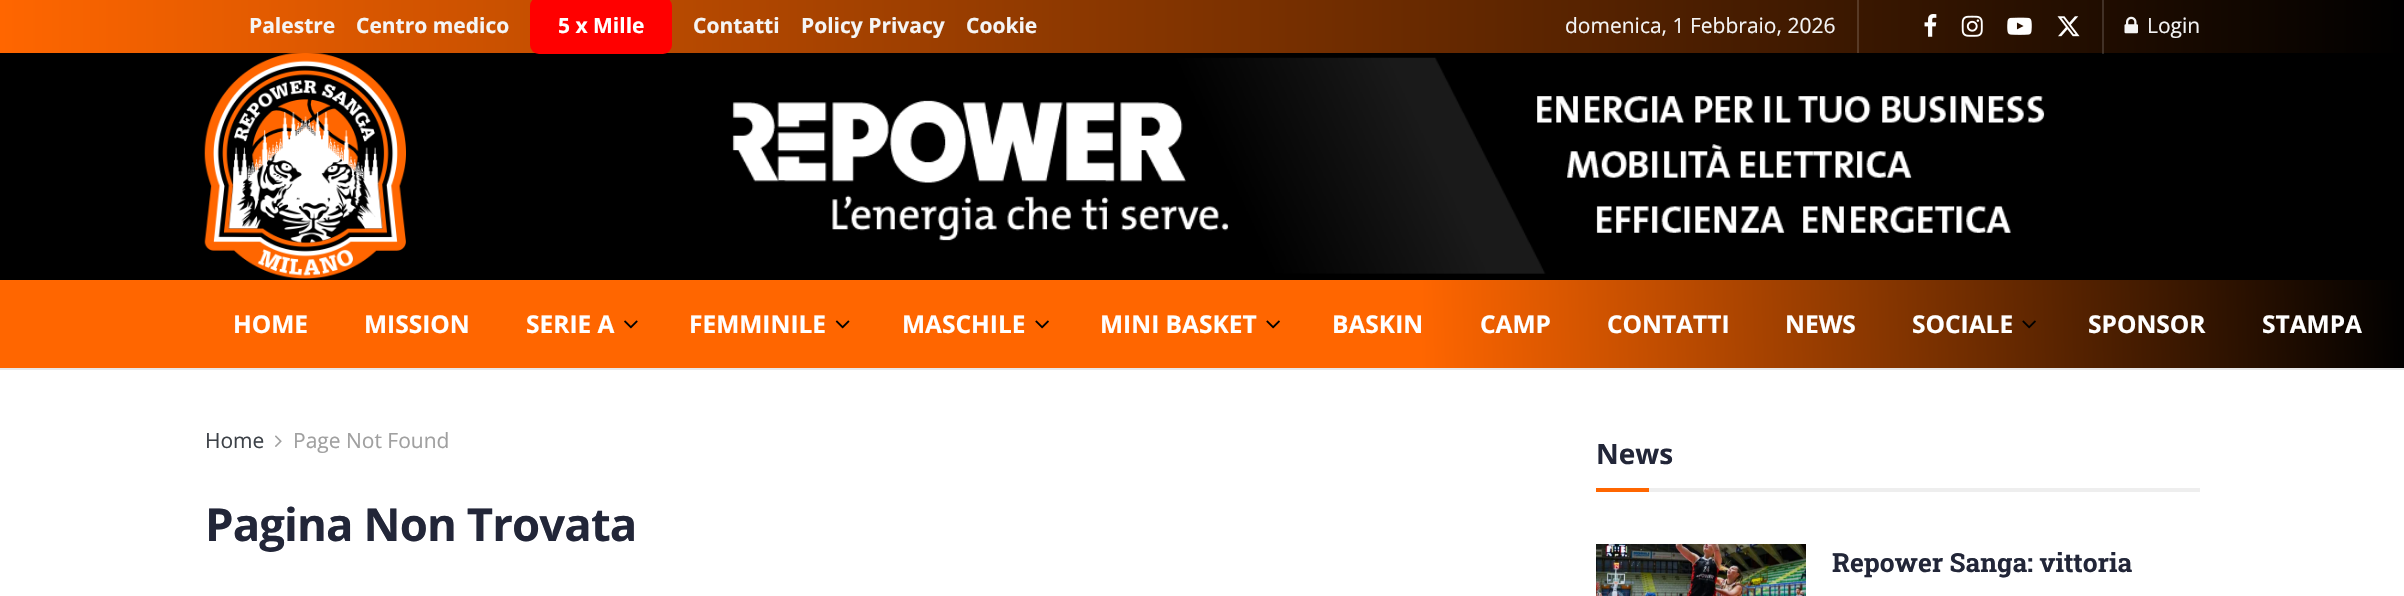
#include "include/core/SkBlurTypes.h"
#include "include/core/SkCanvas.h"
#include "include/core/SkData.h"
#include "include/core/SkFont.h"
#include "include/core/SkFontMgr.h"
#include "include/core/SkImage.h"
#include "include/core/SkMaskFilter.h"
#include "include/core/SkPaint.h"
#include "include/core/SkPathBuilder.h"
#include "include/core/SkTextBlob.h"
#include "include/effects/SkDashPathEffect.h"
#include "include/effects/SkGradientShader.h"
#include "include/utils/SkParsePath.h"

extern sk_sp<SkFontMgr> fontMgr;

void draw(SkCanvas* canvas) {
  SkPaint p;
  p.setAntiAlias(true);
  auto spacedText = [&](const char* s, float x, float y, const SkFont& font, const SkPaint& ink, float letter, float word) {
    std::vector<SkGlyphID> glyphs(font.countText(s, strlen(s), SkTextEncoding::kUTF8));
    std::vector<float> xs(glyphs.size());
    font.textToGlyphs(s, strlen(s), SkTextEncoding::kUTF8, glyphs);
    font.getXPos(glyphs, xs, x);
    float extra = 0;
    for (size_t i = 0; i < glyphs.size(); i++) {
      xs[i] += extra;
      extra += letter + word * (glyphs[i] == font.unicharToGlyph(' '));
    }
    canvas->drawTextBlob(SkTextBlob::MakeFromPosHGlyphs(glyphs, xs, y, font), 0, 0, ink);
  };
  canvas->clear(SK_ColorWHITE);
  {
    const SkColor colors[] = {SkColorSetRGB(255, 102, 0), SK_ColorBLACK};
    const float stops[] = {0, 1};
    const SkPoint ends[] = {{0, 26}, {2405, 26}};
    p.setShader(SkGradientShader::MakeLinear(ends, colors, stops, 2, SkTileMode::kClamp));
    p.setAlpha(255);
  }
  canvas->drawRect(SkRect::MakeLTRB(0, 0, 2404, 53), p);
  {
    const SkColor colors[] = {SkColorSetRGB(255, 125, 38), SkColorSetRGB(38, 38, 38)};
    const float stops[] = {0, 1};
    const SkPoint ends[] = {{0, 26}, {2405, 26}};
    p.setShader(SkGradientShader::MakeLinear(ends, colors, stops, 2, SkTileMode::kClamp));
    p.setAlpha(255);
  }
  canvas->drawRect(SkRect::MakeLTRB(2102, 0, 2104, 53), p);
  p.setShader(nullptr);
  p.setColor(SK_ColorBLACK);
  canvas->drawRect(SkRect::MakeLTRB(0, 53, 2404, 280), p);
  p.setColor(SkColorSetRGB(255, 0, 0));
  canvas->drawRoundRect(SkRect::MakeLTRB(530, -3, 672, 54), 9, 9, p);
  p.setColor(SkColorSetRGB(88, 58, 38));
  canvas->drawRect(SkRect::MakeLTRB(1857, 0, 1859, 53), p);
  canvas->drawImageRect(SkImages::DeferredFromEncodedData(SkData::MakeFromFileName("images/1.png")), SkRect::MakeLTRB(1924, 14, 1937, 37), SkSamplingOptions());
  canvas->drawImageRect(SkImages::DeferredFromEncodedData(SkData::MakeFromFileName("images/2.png")), SkRect::MakeLTRB(1961, 15, 1983, 37), SkSamplingOptions());
  canvas->drawImageRect(SkImages::DeferredFromEncodedData(SkData::MakeFromFileName("images/3.png")), SkRect::MakeLTRB(2007, 17, 2032, 35), SkSamplingOptions());
  canvas->drawImageRect(SkImages::DeferredFromEncodedData(SkData::MakeFromFileName("images/4.png")), SkRect::MakeLTRB(2057, 16, 2080, 37), SkSamplingOptions());
  canvas->drawImageRect(SkImages::DeferredFromEncodedData(SkData::MakeFromFileName("images/5.png")), SkRect::MakeLTRB(2124, 16, 2138, 34), SkSamplingOptions());
  p.setColor(SkColorSetRGB(38, 38, 38));
  canvas->drawRect(SkRect::MakeLTRB(2102, 53, 2104, 54), p);
  canvas->drawImageRect(SkImages::DeferredFromEncodedData(SkData::MakeFromFileName("images/6.png")), SkRect::MakeLTRB(204, 53, 406, 279), SkSamplingOptions());
  canvas->drawImageRect(SkImages::DeferredFromEncodedData(SkData::MakeFromFileName("images/7.png")), SkRect::MakeLTRB(732, 57, 2045, 274), SkSamplingOptions());
  {
    const SkColor colors[] = {SkColorSetRGB(255, 102, 0), SK_ColorBLACK};
    const float stops[] = {0.59f, 1};
    const SkPoint ends[] = {{-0.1f, 366}, {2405, 282}};
    p.setShader(SkGradientShader::MakeLinear(ends, colors, stops, 2, SkTileMode::kClamp));
    p.setAlpha(255);
  }
  canvas->drawRect(SkRect::MakeLTRB(0, 280, 2404, 368), p);
  p.setShader(nullptr);
  p.setColor(SkColorSetRGB(232, 232, 232));
  canvas->drawRect(SkRect::MakeLTRB(0, 368, 2404, 370), p);
  canvas->drawImageRect(SkImages::DeferredFromEncodedData(SkData::MakeFromFileName("images/8.png")), SkRect::MakeLTRB(624, 320, 638, 329), SkSamplingOptions());
  canvas->drawImageRect(SkImages::DeferredFromEncodedData(SkData::MakeFromFileName("images/9.png")), SkRect::MakeLTRB(835, 320, 850, 329), SkSamplingOptions());
  canvas->drawImageRect(SkImages::DeferredFromEncodedData(SkData::MakeFromFileName("images/10.png")), SkRect::MakeLTRB(1035, 320, 1049, 329), SkSamplingOptions());
  canvas->drawImageRect(SkImages::DeferredFromEncodedData(SkData::MakeFromFileName("images/10.png")), SkRect::MakeLTRB(1266, 320, 1280, 329), SkSamplingOptions());
  canvas->drawImageRect(SkImages::DeferredFromEncodedData(SkData::MakeFromFileName("images/11.png")), SkRect::MakeLTRB(2022, 320, 2036, 329), SkSamplingOptions());
  canvas->drawImageRect(SkImages::DeferredFromEncodedData(SkData::MakeFromFileName("images/12.png")), SkRect::MakeLTRB(275, 435, 282, 447), SkSamplingOptions());
  p.setColor(SkColorSetRGB(238, 238, 238));
  canvas->drawRect(SkRect::MakeLTRB(1649, 488, 2200, 492), p);
  p.setColor(SkColorSetRGB(255, 102, 0));
  canvas->drawRect(SkRect::MakeLTRB(1596, 488, 1649, 492), p);
  canvas->drawImageRect(SkImages::DeferredFromEncodedData(SkData::MakeFromFileName("images/13.png")), SkRect::MakeLTRB(1596, 544, 1806, 596), SkSamplingOptions());
  SkFont font1(fontMgr->matchFamilyStyle("Open Sans", SkFontStyle::Bold()), 21);
  font1.setSubpixel(true);
  p.setColor(SkColorSetRGB(245, 245, 245));
  canvas->drawString("Palestre", 249, 33, font1, p);
  canvas->drawString("Centro medico", 356, 33, font1, p);
  p.setColor(SK_ColorWHITE);
  canvas->drawString("5 x Mille", 558, 33, font1, p);
  p.setColor(SkColorSetRGB(245, 245, 245));
  canvas->drawString("Contatti", 693, 33, font1, p);
  canvas->drawString("Policy Privacy", 801, 33, font1, p);
  canvas->drawString("Cookie", 966, 33, font1, p);
  SkFont font2(fontMgr->matchFamilyStyle("Open Sans", SkFontStyle::Normal()), 21);
  font2.setSubpixel(true);
  canvas->drawString("domenica, 1 Febbraio, 2026", 1565, 33, font2, p);
  canvas->drawString("Login", 2147, 33, font2, p);
  SkFont font3(fontMgr->matchFamilyStyle("Open Sans", SkFontStyle::Bold()), 24.5f);
  font3.setSubpixel(true);
  p.setColor(SK_ColorWHITE);
  canvas->drawString("HOME", 233, 333, font3, p);
  canvas->drawString("MISSION", 364, 333, font3, p);
  canvas->drawString("SERIE A", 526, 333, font3, p);
  canvas->drawString("FEMMINILE", 689, 333, font3, p);
  canvas->drawString("MASCHILE", 902, 333, font3, p);
  canvas->drawString("MINI BASKET", 1100, 333, font3, p);
  canvas->drawString("BASKIN", 1332, 333, font3, p);
  canvas->drawString("CAMP", 1480, 333, font3, p);
  canvas->drawString("CONTATTI", 1607, 333, font3, p);
  canvas->drawString("NEWS", 1785, 333, font3, p);
  canvas->drawString("SOCIALE", 1912, 333, font3, p);
  canvas->drawString("SPONSOR", 2088, 333, font3, p);
  canvas->drawString("STAMPA", 2262, 333, font3, p);
  p.setColor(SkColorSetRGB(61, 66, 72));
  canvas->drawString("Home", 205, 448, font2, p);
  p.setColor(SkColorSetRGB(160, 160, 160));
  canvas->drawString("Page Not Found", 293, 448, font2, p);
  SkFont font4(fontMgr->matchFamilyStyle("Open Sans", SkFontStyle::Bold()), 45.5f);
  font4.setSubpixel(true);
  p.setColor(SkColorSetRGB(34, 38, 56));
  spacedText("Pagina Non Trovata", 205, 541, font4, p, -0.9f, 0);
  SkFont font5(fontMgr->matchFamilyStyle("Open Sans", SkFontStyle::Bold()), 28);
  font5.setSubpixel(true);
  canvas->drawString("News", 1596, 464, font5, p);
  SkFont font6(fontMgr->matchFamilyStyle("Roboto Slab", SkFontStyle::Bold()), 26.25f);
  font6.setSubpixel(true);
  canvas->drawString("Repower Sanga: vittoria", 1832, 572, font6, p);
}
